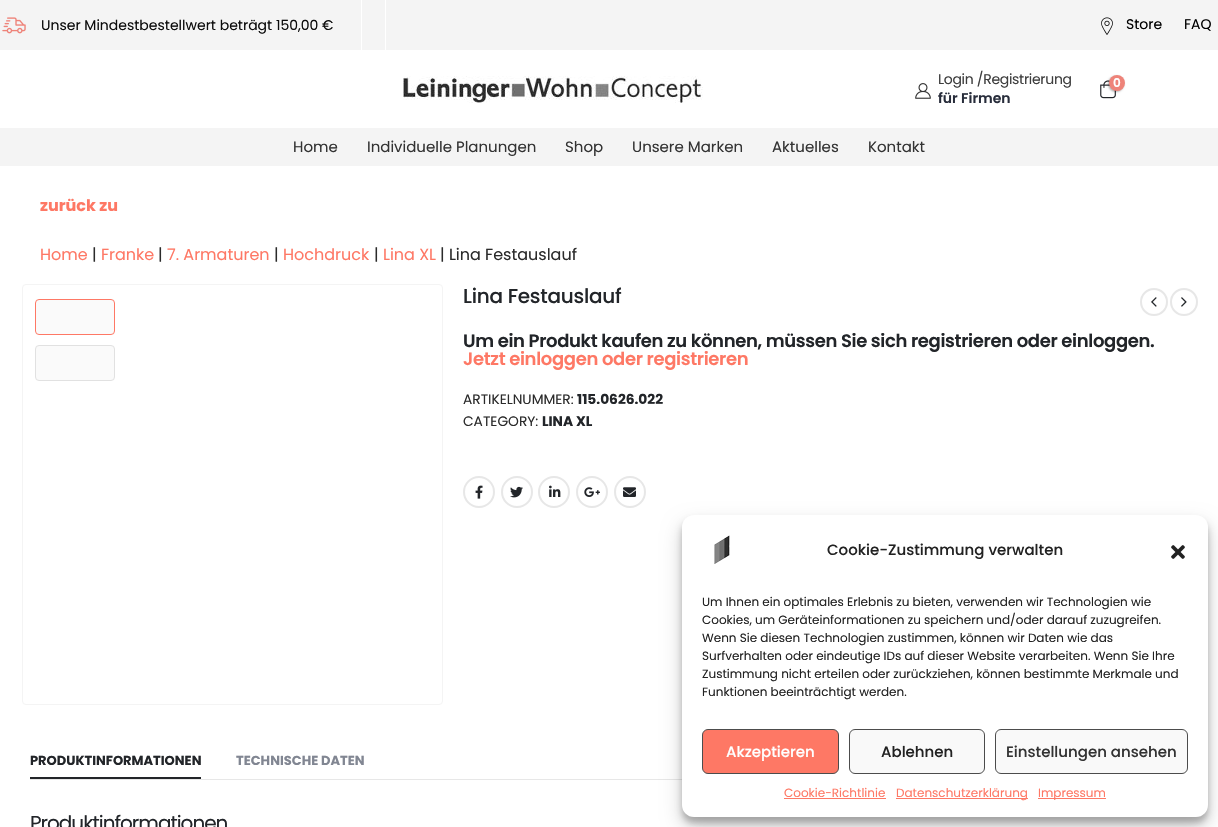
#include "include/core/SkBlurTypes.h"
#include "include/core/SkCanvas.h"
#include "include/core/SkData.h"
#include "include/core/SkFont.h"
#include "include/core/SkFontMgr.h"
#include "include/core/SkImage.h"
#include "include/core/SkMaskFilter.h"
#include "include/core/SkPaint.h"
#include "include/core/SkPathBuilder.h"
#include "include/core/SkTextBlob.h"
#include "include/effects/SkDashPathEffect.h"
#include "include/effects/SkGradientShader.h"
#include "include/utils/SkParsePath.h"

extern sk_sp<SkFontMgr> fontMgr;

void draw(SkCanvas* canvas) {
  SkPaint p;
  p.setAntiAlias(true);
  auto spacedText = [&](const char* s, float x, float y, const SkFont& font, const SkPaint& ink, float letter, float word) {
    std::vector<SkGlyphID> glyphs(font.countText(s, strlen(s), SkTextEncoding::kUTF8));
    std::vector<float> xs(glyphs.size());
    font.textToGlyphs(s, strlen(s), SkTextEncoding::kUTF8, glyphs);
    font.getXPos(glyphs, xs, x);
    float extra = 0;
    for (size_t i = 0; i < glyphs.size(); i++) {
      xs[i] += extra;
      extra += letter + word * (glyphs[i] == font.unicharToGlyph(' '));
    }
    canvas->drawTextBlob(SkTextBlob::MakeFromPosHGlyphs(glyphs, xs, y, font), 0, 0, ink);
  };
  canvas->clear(SK_ColorWHITE);
  p.setColor(SkColorSetRGB(244, 244, 244));
  canvas->drawRect(SkRect::MakeLTRB(0, 0, 1218, 50), p);
  canvas->drawImageRect(SkImages::DeferredFromEncodedData(SkData::MakeFromFileName("images/1.png")), SkRect::MakeLTRB(2, 17, 26, 34), SkSamplingOptions());
  p.setColor(SK_ColorWHITE);
  canvas->drawRect(SkRect::MakeLTRB(361, 0, 362, 50), p);
  canvas->drawRect(SkRect::MakeLTRB(385, 0, 386, 50), p);
  canvas->drawImageRect(SkImages::DeferredFromEncodedData(SkData::MakeFromFileName("images/2.png")), SkRect::MakeLTRB(1101, 17, 1113, 35), SkSamplingOptions());
  canvas->drawImageRect(SkImages::DeferredFromEncodedData(SkData::MakeFromFileName("images/3.png")), SkRect::MakeLTRB(403, 76, 703, 103), SkSamplingOptions());
  canvas->drawImageRect(SkImages::DeferredFromEncodedData(SkData::MakeFromFileName("images/4.png")), SkRect::MakeLTRB(915, 83, 931, 99), SkSamplingOptions());
  canvas->drawImageRect(SkImages::DeferredFromEncodedData(SkData::MakeFromFileName("images/5.png")), SkRect::MakeLTRB(1100, 80, 1116, 99), SkSamplingOptions());
  p.setColor(SkColorSetARGB(77, 0, 0, 0));
  p.setMaskFilter(SkMaskFilter::MakeBlur(kNormal_SkBlurStyle, 1));
  canvas->drawRoundRect(SkRect::MakeLTRB(1108, 76, 1124, 92), 8, 8, p);
  p.setMaskFilter(nullptr);
  p.setColor(SkColorSetRGB(238, 131, 121));
  canvas->drawCircle(1117, 83, 8, p);
  p.setColor(SkColorSetRGB(244, 244, 244));
  canvas->drawRect(SkRect::MakeLTRB(0, 128, 1218, 166), p);
  p.setStyle(SkPaint::kStroke_Style);
  p.setStrokeWidth(1);
  canvas->drawRoundRect(SkRect::MakeLTRB(22.5f, 284.5f, 442.5f, 704.5f), 3.5f, 3.5f, p);
  p.setStyle(SkPaint::kFill_Style);
  p.setColor(SkColorSetRGB(250, 250, 250));
  canvas->drawRoundRect(SkRect::MakeLTRB(35.5f, 299.5f, 114.5f, 334.5f), 3.5f, 3.5f, p);
  p.setStyle(SkPaint::kStroke_Style);
  p.setColor(SkColorSetRGB(254, 120, 101));
  canvas->drawRoundRect(SkRect::MakeLTRB(35.5f, 299.5f, 114.5f, 334.5f), 3.5f, 3.5f, p);
  p.setStyle(SkPaint::kFill_Style);
  p.setColor(SkColorSetRGB(250, 250, 250));
  canvas->drawRoundRect(SkRect::MakeLTRB(35.5f, 345.5f, 114.5f, 380.5f), 3.5f, 3.5f, p);
  p.setStyle(SkPaint::kStroke_Style);
  p.setColor(SkColorSetRGB(225, 225, 225));
  canvas->drawRoundRect(SkRect::MakeLTRB(35.5f, 345.5f, 114.5f, 380.5f), 3.5f, 3.5f, p);
  p.setStrokeWidth(2);
  p.setColor(SkColorSetRGB(231, 231, 231));
  canvas->drawCircle(1154, 302, 13, p);
  canvas->drawImageRect(SkImages::DeferredFromEncodedData(SkData::MakeFromFileName("images/6.png")), SkRect::MakeLTRB(1151, 297, 1157, 307), SkSamplingOptions());
  canvas->drawCircle(1184, 302, 13, p);
  canvas->drawImageRect(SkImages::DeferredFromEncodedData(SkData::MakeFromFileName("images/7.png")), SkRect::MakeLTRB(1181, 297, 1187, 307), SkSamplingOptions());
  canvas->drawCircle(479, 492, 15, p);
  canvas->drawImageRect(SkImages::DeferredFromEncodedData(SkData::MakeFromFileName("images/8.png")), SkRect::MakeLTRB(475, 485, 483, 499), SkSamplingOptions());
  canvas->drawCircle(517, 492, 15, p);
  canvas->drawImageRect(SkImages::DeferredFromEncodedData(SkData::MakeFromFileName("images/9.png")), SkRect::MakeLTRB(510, 486, 523, 498), SkSamplingOptions());
  canvas->drawCircle(554, 492, 15, p);
  canvas->drawImageRect(SkImages::DeferredFromEncodedData(SkData::MakeFromFileName("images/10.png")), SkRect::MakeLTRB(549, 485, 561, 497), SkSamplingOptions());
  canvas->drawCircle(592, 492, 15, p);
  canvas->drawImageRect(SkImages::DeferredFromEncodedData(SkData::MakeFromFileName("images/11.png")), SkRect::MakeLTRB(584, 487, 600, 497), SkSamplingOptions());
  canvas->drawCircle(630, 492, 15, p);
  canvas->drawImageRect(SkImages::DeferredFromEncodedData(SkData::MakeFromFileName("images/12.png")), SkRect::MakeLTRB(623, 487, 636, 497), SkSamplingOptions());
  p.setStyle(SkPaint::kFill_Style);
  p.setColor(SkColorSetRGB(34, 37, 41));
  canvas->drawRect(SkRect::MakeLTRB(30, 777, 201, 779), p);
  p.setColor(SkColorSetRGB(231, 231, 231));
  canvas->drawRect(SkRect::MakeLTRB(30, 779, 682, 780), p);
  p.setColor(SkColorSetARGB(59, 0, 0, 0));
  p.setMaskFilter(SkMaskFilter::MakeBlur(kNormal_SkBlurStyle, 3));
  canvas->drawRoundRect(SkRect::MakeLTRB(682, 521, 1208, 823), 12, 12, p);
  p.setMaskFilter(nullptr);
  p.setColor(SkColorSetARGB(48, 0, 0, 0));
  p.setMaskFilter(SkMaskFilter::MakeBlur(kNormal_SkBlurStyle, 10));
  canvas->drawRoundRect(SkRect::MakeLTRB(682, 525, 1208, 827), 12, 12, p);
  p.setMaskFilter(nullptr);
  p.setColor(SK_ColorWHITE);
  canvas->drawRoundRect(SkRect::MakeLTRB(682, 515, 1208, 817), 12, 12, p);
  canvas->drawImageRect(SkImages::DeferredFromEncodedData(SkData::MakeFromFileName("images/13.png")), SkRect::MakeLTRB(714, 535, 730, 564), SkSamplingOptions());
  canvas->drawImageRect(SkImages::DeferredFromEncodedData(SkData::MakeFromFileName("images/14.png")), SkRect::MakeLTRB(1171, 545, 1185, 559), SkSamplingOptions());
  p.setColor(SkColorSetRGB(254, 120, 101));
  canvas->drawRoundRect(SkRect::MakeLTRB(702.5f, 729.5f, 838.5f, 773.5f), 5.5f, 5.5f, p);
  p.setStyle(SkPaint::kStroke_Style);
  p.setStrokeWidth(1);
  p.setColor(SkColorSetRGB(76, 76, 76));
  canvas->drawRoundRect(SkRect::MakeLTRB(702.5f, 729.5f, 838.5f, 773.5f), 5.5f, 5.5f, p);
  p.setStyle(SkPaint::kFill_Style);
  p.setColor(SkColorSetRGB(249, 249, 249));
  canvas->drawRoundRect(SkRect::MakeLTRB(849.5f, 729.5f, 984.5f, 773.5f), 5.5f, 5.5f, p);
  p.setStyle(SkPaint::kStroke_Style);
  p.setColor(SkColorSetRGB(76, 76, 76));
  canvas->drawRoundRect(SkRect::MakeLTRB(849.5f, 729.5f, 984.5f, 773.5f), 5.5f, 5.5f, p);
  p.setStyle(SkPaint::kFill_Style);
  p.setColor(SkColorSetRGB(249, 249, 249));
  canvas->drawRoundRect(SkRect::MakeLTRB(995.5f, 729.5f, 1187.5f, 773.5f), 5.5f, 5.5f, p);
  p.setStyle(SkPaint::kStroke_Style);
  p.setColor(SkColorSetRGB(76, 76, 76));
  canvas->drawRoundRect(SkRect::MakeLTRB(995.5f, 729.5f, 1187.5f, 773.5f), 5.5f, 5.5f, p);
  p.setStyle(SkPaint::kFill_Style);
  p.setColor(SkColorSetRGB(254, 120, 101));
  canvas->drawRect(SkRect::MakeLTRB(784, 798, 886, 799), p);
  canvas->drawRect(SkRect::MakeLTRB(896, 798, 1028, 799), p);
  canvas->drawRect(SkRect::MakeLTRB(1038, 798, 1106, 799), p);
  SkFont font1(fontMgr->matchFamilyStyle("Poppins", SkFontStyle::Normal()), 14);
  font1.setSubpixel(true);
  p.setColor(SkColorSetRGB(12, 12, 12));
  canvas->drawString("Unser Mindestbestellwert beträgt 150,00 €", 41, 30, font1, p);
  p.setColor(SK_ColorBLACK);
  canvas->drawString("Store", 1126, 29, font1, p);
  canvas->drawString("FAQ", 1184, 29, font1, p);
  p.setColor(SkColorSetRGB(62, 62, 62));
  spacedText("Login /Registrierung", 938, 84, font1, p, -0.3f, 0);
  SkFont font2(fontMgr->matchFamilyStyle("Poppins", SkFontStyle(600, SkFontStyle::kNormal_Width, SkFontStyle::kUpright_Slant)), 14);
  font2.setSubpixel(true);
  p.setColor(SkColorSetRGB(40, 45, 59));
  canvas->drawString("für Firmen", 938, 103, font2, p);
  SkFont font3(fontMgr->matchFamilyStyle("Poppins", SkFontStyle(600, SkFontStyle::kNormal_Width, SkFontStyle::kUpright_Slant)), 12);
  font3.setSubpixel(true);
  p.setColor(SK_ColorWHITE);
  canvas->drawString("0", 1113, 87, font3, p);
  SkFont font4(fontMgr->matchFamilyStyle("Poppins", SkFontStyle::Normal()), 15);
  font4.setSubpixel(true);
  p.setColor(SkColorSetRGB(51, 51, 51));
  canvas->drawString("Home", 293, 152, font4, p);
  canvas->drawString("Individuelle Planungen", 367, 152, font4, p);
  canvas->drawString("Shop", 565, 152, font4, p);
  canvas->drawString("Unsere Marken", 632, 152, font4, p);
  canvas->drawString("Aktuelles", 772, 152, font4, p);
  canvas->drawString("Kontakt", 868, 152, font4, p);
  SkFont font5(fontMgr->matchFamilyStyle("Poppins", SkFontStyle::Bold()), 16);
  font5.setSubpixel(true);
  p.setColor(SkColorSetRGB(254, 120, 101));
  canvas->drawString("zurück zu", 40, 211, font5, p);
  SkFont font6(fontMgr->matchFamilyStyle("Poppins", SkFontStyle::Normal()), 16);
  font6.setSubpixel(true);
  canvas->drawString("Home", 40, 260, font6, p);
  p.setColor(SkColorSetRGB(43, 43, 43));
  canvas->drawString("|", 92, 260, font6, p);
  p.setColor(SkColorSetRGB(254, 120, 101));
  canvas->drawString("Franke", 101, 260, font6, p);
  p.setColor(SkColorSetRGB(43, 43, 43));
  canvas->drawString("|", 158, 260, font6, p);
  p.setColor(SkColorSetRGB(254, 120, 101));
  canvas->drawString("7. Armaturen", 167, 260, font6, p);
  p.setColor(SkColorSetRGB(43, 43, 43));
  canvas->drawString("|", 274, 260, font6, p);
  p.setColor(SkColorSetRGB(254, 120, 101));
  canvas->drawString("Hochdruck", 283, 260, font6, p);
  p.setColor(SkColorSetRGB(43, 43, 43));
  canvas->drawString("|", 374, 260, font6, p);
  p.setColor(SkColorSetRGB(254, 120, 101));
  canvas->drawString("Lina XL", 383, 260, font6, p);
  p.setColor(SkColorSetRGB(43, 43, 43));
  canvas->drawString("| Lina Festauslauf", 440, 260, font6, p);
  SkFont font7(fontMgr->matchFamilyStyle("Poppins", SkFontStyle(500, SkFontStyle::kNormal_Width, SkFontStyle::kUpright_Slant)), 20);
  font7.setSubpixel(true);
  p.setColor(SkColorSetRGB(34, 37, 41));
  spacedText("Lina Festauslauf", 463, 303, font7, p, -0.25f, 0);
  SkFont font8(fontMgr->matchFamilyStyle("Poppins", SkFontStyle(600, SkFontStyle::kNormal_Width, SkFontStyle::kUpright_Slant)), 18);
  font8.setSubpixel(true);
  spacedText("Um ein Produkt kaufen zu können, müssen Sie sich registrieren oder einloggen.", 463, 347, font8, p, -0.35f, 0);
  p.setColor(SkColorSetRGB(254, 120, 101));
  spacedText("Jetzt einloggen oder registrieren", 463, 365, font8, p, -0.35f, 0);
  SkFont font9(fontMgr->matchFamilyStyle("Poppins", SkFontStyle::Normal()), 13.75f);
  font9.setSubpixel(true);
  p.setColor(SkColorSetRGB(43, 43, 43));
  canvas->drawString("ARTIKELNUMMER:", 463, 404, font9, p);
  SkFont font10(fontMgr->matchFamilyStyle("Poppins", SkFontStyle::Bold()), 13.75f);
  font10.setSubpixel(true);
  p.setColor(SkColorSetRGB(34, 37, 41));
  canvas->drawString("115.0626.022", 577, 404, font10, p);
  p.setColor(SkColorSetRGB(43, 43, 43));
  canvas->drawString("CATEGORY:", 463, 426, font9, p);
  p.setColor(SkColorSetRGB(34, 37, 41));
  canvas->drawString("LINA XL", 542, 426, font10, p);
  SkFont font11(fontMgr->matchFamilyStyle("Poppins", SkFontStyle::Bold()), 13);
  font11.setSubpixel(true);
  canvas->drawString("PRODUKTINFORMATIONEN", 30, 765, font11, p);
  p.setColor(SkColorSetRGB(129, 134, 146));
  canvas->drawString("TECHNISCHE DATEN", 236, 765, font11, p);
  SkFont font12(fontMgr->matchFamilyStyle("Poppins", SkFontStyle::Normal()), 20);
  font12.setSubpixel(true);
  p.setColor(SkColorSetRGB(34, 37, 41));
  spacedText("Produktinformationen", 30, 830, font12, p, -1, 0);
  SkFont font13(fontMgr->matchFamilyStyle("Poppins", SkFontStyle(500, SkFontStyle::kNormal_Width, SkFontStyle::kUpright_Slant)), 15);
  font13.setSubpixel(true);
  p.setColor(SkColorSetRGB(34, 34, 34));
  canvas->drawString("Cookie-Zustimmung verwalten", 827, 555, font13, p);
  SkFont font14(fontMgr->matchFamilyStyle("Poppins", SkFontStyle::Normal()), 12);
  font14.setSubpixel(true);
  canvas->drawString("Um Ihnen ein optimales Erlebnis zu bieten, verwenden wir Technologien wie", 702, 606, font14, p);
  canvas->drawString("Cookies, um Geräteinformationen zu speichern und/oder darauf zuzugreifen.", 702, 624, font14, p);
  canvas->drawString("Wenn Sie diesen Technologien zustimmen, können wir Daten wie das", 702, 642, font14, p);
  canvas->drawString("Surfverhalten oder eindeutige IDs auf dieser Website verarbeiten. Wenn Sie Ihre", 702, 660, font14, p);
  canvas->drawString("Zustimmung nicht erteilen oder zurückziehen, können bestimmte Merkmale und", 702, 678, font14, p);
  canvas->drawString("Funktionen beeinträchtigt werden.", 702, 696, font14, p);
  p.setColor(SK_ColorWHITE);
  canvas->drawString("Akzeptieren", 726, 757, font13, p);
  p.setColor(SkColorSetRGB(34, 34, 34));
  canvas->drawString("Ablehnen", 881, 757, font13, p);
  p.setColor(SkColorSetRGB(51, 51, 51));
  canvas->drawString("Einstellungen ansehen", 1006, 757, font13, p);
  p.setColor(SkColorSetRGB(254, 120, 101));
  canvas->drawString("Cookie-Richtlinie", 784, 797, font14, p);
  canvas->drawString("Datenschutzerklärung", 896, 797, font14, p);
  canvas->drawString("Impressum", 1038, 797, font14, p);
}
